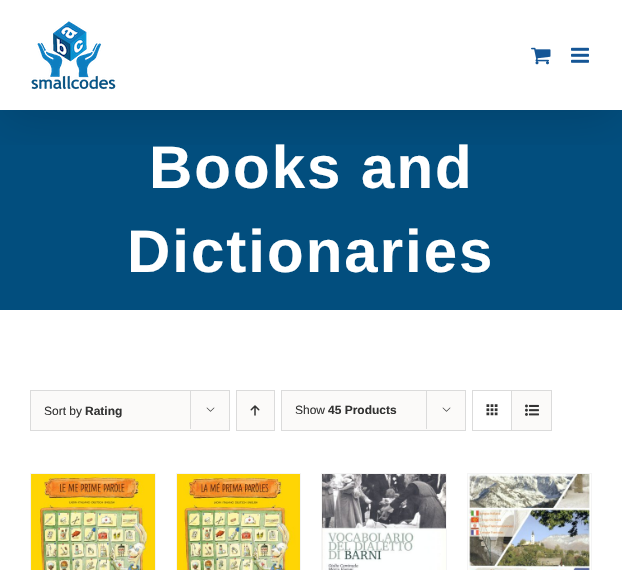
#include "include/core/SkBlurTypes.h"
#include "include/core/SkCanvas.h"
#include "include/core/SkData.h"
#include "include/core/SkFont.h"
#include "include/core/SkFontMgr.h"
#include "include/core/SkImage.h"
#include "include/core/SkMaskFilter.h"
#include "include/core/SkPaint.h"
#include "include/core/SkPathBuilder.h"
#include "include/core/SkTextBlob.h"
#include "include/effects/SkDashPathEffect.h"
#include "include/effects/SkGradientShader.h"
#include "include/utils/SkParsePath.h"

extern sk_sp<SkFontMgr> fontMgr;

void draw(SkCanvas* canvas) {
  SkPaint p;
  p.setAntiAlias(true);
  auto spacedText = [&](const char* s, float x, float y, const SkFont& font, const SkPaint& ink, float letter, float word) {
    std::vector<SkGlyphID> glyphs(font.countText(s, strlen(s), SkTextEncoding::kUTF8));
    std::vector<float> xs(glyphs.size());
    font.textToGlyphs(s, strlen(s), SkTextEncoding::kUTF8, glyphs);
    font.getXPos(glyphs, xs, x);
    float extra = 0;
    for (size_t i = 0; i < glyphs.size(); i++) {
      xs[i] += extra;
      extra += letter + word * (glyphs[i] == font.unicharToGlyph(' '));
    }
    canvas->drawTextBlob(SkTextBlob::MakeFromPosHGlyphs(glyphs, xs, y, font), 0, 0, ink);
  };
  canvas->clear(SK_ColorWHITE);
  p.setColor(SkColorSetRGB(2, 78, 126));
  canvas->drawRect(SkRect::MakeLTRB(0, 110, 622, 310), p);
  canvas->save();
  canvas->clipRect(SkRect::MakeLTRB(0, 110, 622, 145));
  p.setColor(SkColorSetARGB(36, 0, 0, 0));
  p.setMaskFilter(SkMaskFilter::MakeBlur(kNormal_SkBlurStyle, 25));
  canvas->drawRect(SkRect::MakeLTRB(2, 12, 620, 118), p);
  p.setMaskFilter(nullptr);
  canvas->restore();
  canvas->drawImageRect(SkImages::DeferredFromEncodedData(SkData::MakeFromFileName("images/1.png")), SkRect::MakeLTRB(31, 21, 116, 90), SkSamplingOptions());
  canvas->drawImageRect(SkImages::DeferredFromEncodedData(SkData::MakeFromFileName("images/2.png")), SkRect::MakeLTRB(531, 47, 551, 65), SkSamplingOptions());
  canvas->drawImageRect(SkImages::DeferredFromEncodedData(SkData::MakeFromFileName("images/3.png")), SkRect::MakeLTRB(571, 47, 589, 63), SkSamplingOptions());
  p.setColor(SkColorSetRGB(251, 250, 249));
  canvas->drawRect(SkRect::MakeLTRB(30.5f, 390.5f, 229.5f, 430.5f), p);
  p.setStyle(SkPaint::kStroke_Style);
  p.setStrokeWidth(1);
  p.setColor(SkColorSetRGB(219, 219, 219));
  canvas->drawRect(SkRect::MakeLTRB(30.5f, 390.5f, 229.5f, 430.5f), p);
  p.setStyle(SkPaint::kFill_Style);
  canvas->drawRect(SkRect::MakeLTRB(190, 390, 191, 429), p);
  canvas->drawImageRect(SkImages::DeferredFromEncodedData(SkData::MakeFromFileName("images/4.png")), SkRect::MakeLTRB(206, 407, 215, 412), SkSamplingOptions());
  p.setColor(SkColorSetRGB(251, 250, 249));
  canvas->drawRect(SkRect::MakeLTRB(236.5f, 390.5f, 274.5f, 430.5f), p);
  p.setStyle(SkPaint::kStroke_Style);
  p.setColor(SkColorSetRGB(219, 219, 219));
  canvas->drawRect(SkRect::MakeLTRB(236.5f, 390.5f, 274.5f, 430.5f), p);
  canvas->drawImageRect(SkImages::DeferredFromEncodedData(SkData::MakeFromFileName("images/5.png")), SkRect::MakeLTRB(250, 405, 260, 416), SkSamplingOptions());
  p.setStyle(SkPaint::kFill_Style);
  p.setColor(SkColorSetRGB(251, 250, 249));
  canvas->drawRect(SkRect::MakeLTRB(281.5f, 390.5f, 465.5f, 430.5f), p);
  p.setStyle(SkPaint::kStroke_Style);
  p.setColor(SkColorSetRGB(219, 219, 219));
  canvas->drawRect(SkRect::MakeLTRB(281.5f, 390.5f, 465.5f, 430.5f), p);
  p.setStyle(SkPaint::kFill_Style);
  canvas->drawRect(SkRect::MakeLTRB(426, 390, 427, 429), p);
  canvas->drawImageRect(SkImages::DeferredFromEncodedData(SkData::MakeFromFileName("images/4.png")), SkRect::MakeLTRB(442, 407, 451, 412), SkSamplingOptions());
  p.setStyle(SkPaint::kStroke_Style);
  canvas->drawRect(SkRect::MakeLTRB(472.5f, 390.5f, 551.5f, 430.5f), p);
  p.setStyle(SkPaint::kFill_Style);
  canvas->drawRect(SkRect::MakeLTRB(511, 391, 512, 430), p);
  canvas->drawImageRect(SkImages::DeferredFromEncodedData(SkData::MakeFromFileName("images/6.png")), SkRect::MakeLTRB(486, 404, 498, 416), SkSamplingOptions());
  p.setColor(SkColorSetRGB(251, 250, 249));
  canvas->drawRect(SkRect::MakeLTRB(512, 391, 551, 430), p);
  canvas->drawImageRect(SkImages::DeferredFromEncodedData(SkData::MakeFromFileName("images/7.png")), SkRect::MakeLTRB(525, 404, 539, 416), SkSamplingOptions());
  p.setColor(SkColorSetRGB(245, 245, 245));
  canvas->drawRect(SkRect::MakeLTRB(30, 473, 156, 474), p);
  canvas->drawRect(SkRect::MakeLTRB(155, 473, 156, 570), p);
  canvas->drawRect(SkRect::MakeLTRB(30, 473, 31, 570), p);
  canvas->drawImageRect(SkImages::DeferredFromEncodedData(SkData::MakeFromFileName("images/8.png")), SkRect::MakeLTRB(31, 474, 155, 570), SkSamplingOptions());
  canvas->drawRect(SkRect::MakeLTRB(176, 473, 301, 474), p);
  canvas->drawRect(SkRect::MakeLTRB(300, 473, 301, 570), p);
  canvas->drawRect(SkRect::MakeLTRB(176, 473, 177, 570), p);
  canvas->drawImageRect(SkImages::DeferredFromEncodedData(SkData::MakeFromFileName("images/9.png")), SkRect::MakeLTRB(177, 474, 300, 570), SkSamplingOptions());
  canvas->drawRect(SkRect::MakeLTRB(321, 473, 447, 474), p);
  canvas->drawRect(SkRect::MakeLTRB(446, 473, 447, 570), p);
  canvas->drawRect(SkRect::MakeLTRB(321, 473, 322, 570), p);
  canvas->drawImageRect(SkImages::DeferredFromEncodedData(SkData::MakeFromFileName("images/10.png")), SkRect::MakeLTRB(322, 474, 446, 570), SkSamplingOptions());
  canvas->drawRect(SkRect::MakeLTRB(467, 473, 592, 474), p);
  canvas->drawRect(SkRect::MakeLTRB(591, 473, 592, 570), p);
  canvas->drawRect(SkRect::MakeLTRB(467, 473, 468, 570), p);
  canvas->drawImageRect(SkImages::DeferredFromEncodedData(SkData::MakeFromFileName("images/11.png")), SkRect::MakeLTRB(468, 474, 591, 570), SkSamplingOptions());
  SkFont font1(fontMgr->matchFamilyStyle("Liberation Sans", SkFontStyle::Bold()), 60);
  font1.setSubpixel(true);
  p.setColor(SK_ColorWHITE);
  spacedText("Books and", 149, 188, font1, p, 2, 0);
  spacedText("Dictionaries", 127, 272, font1, p, 2, 0);
  SkFont font2(fontMgr->matchFamilyStyle("Liberation Sans", SkFontStyle::Normal()), 12);
  font2.setSubpixel(true);
  p.setColor(SkColorSetRGB(51, 51, 51));
  canvas->drawString("Sort by", 44, 415, font2, p);
  SkFont font3(fontMgr->matchFamilyStyle("Liberation Sans", SkFontStyle::Bold()), 12);
  font3.setSubpixel(true);
  canvas->drawString("Rating", 85, 415, font3, p);
  canvas->drawString("Show", 295, 414, font2, p);
  canvas->drawString("45 Products", 328, 414, font3, p);
}
